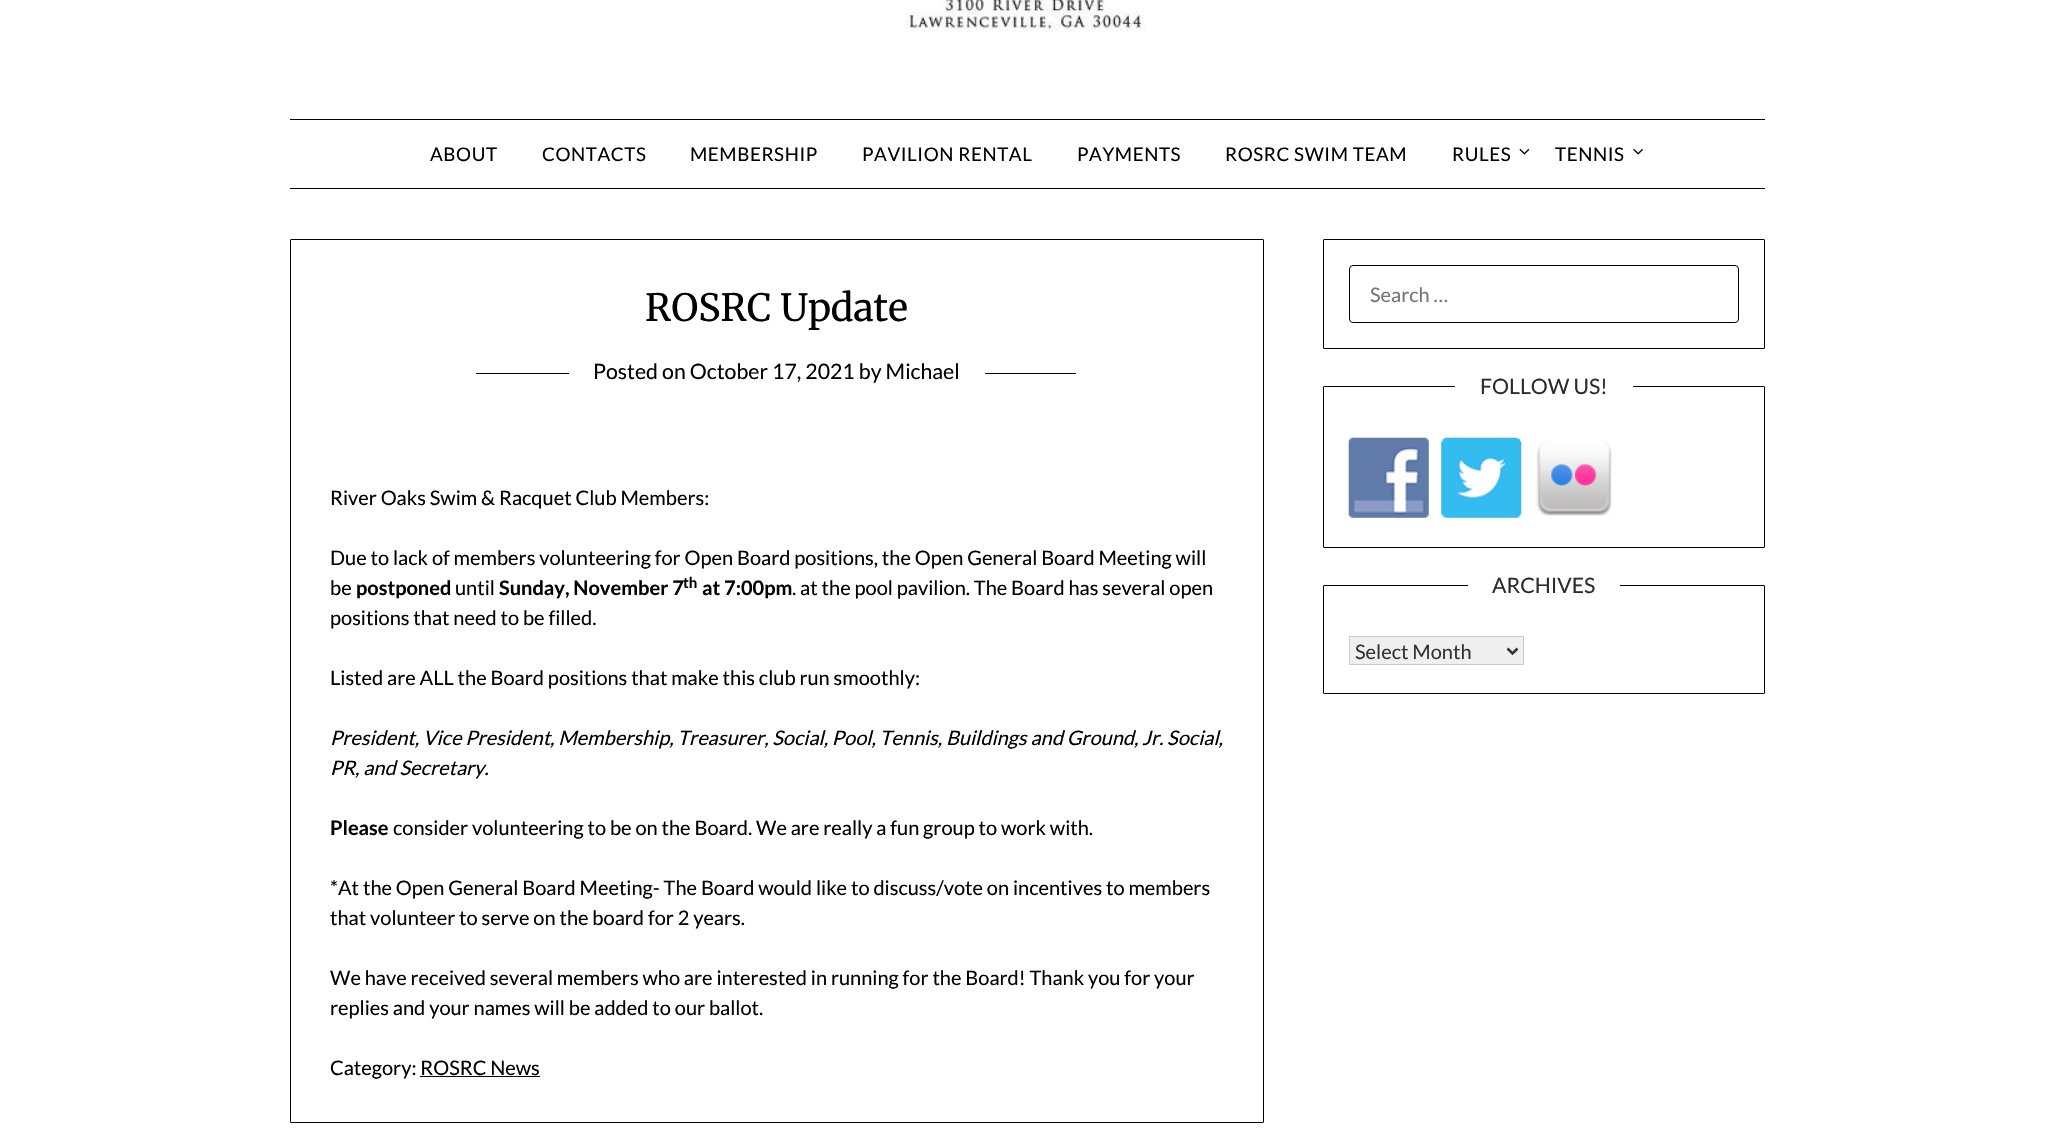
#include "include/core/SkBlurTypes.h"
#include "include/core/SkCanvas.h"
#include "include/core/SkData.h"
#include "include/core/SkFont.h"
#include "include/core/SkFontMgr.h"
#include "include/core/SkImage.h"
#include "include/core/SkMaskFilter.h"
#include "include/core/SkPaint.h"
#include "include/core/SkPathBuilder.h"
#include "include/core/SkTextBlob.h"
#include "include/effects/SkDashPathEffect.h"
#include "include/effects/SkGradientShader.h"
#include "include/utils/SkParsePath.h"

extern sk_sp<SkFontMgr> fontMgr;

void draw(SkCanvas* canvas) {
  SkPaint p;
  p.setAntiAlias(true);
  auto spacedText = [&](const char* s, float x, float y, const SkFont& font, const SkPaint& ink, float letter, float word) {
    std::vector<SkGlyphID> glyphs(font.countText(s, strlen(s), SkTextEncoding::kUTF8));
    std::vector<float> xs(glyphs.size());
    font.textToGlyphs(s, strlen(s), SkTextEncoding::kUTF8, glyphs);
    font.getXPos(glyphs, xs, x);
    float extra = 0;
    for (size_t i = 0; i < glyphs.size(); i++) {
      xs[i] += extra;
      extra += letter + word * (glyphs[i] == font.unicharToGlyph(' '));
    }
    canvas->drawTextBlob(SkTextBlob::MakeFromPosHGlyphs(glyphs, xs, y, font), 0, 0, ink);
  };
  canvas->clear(SK_ColorWHITE);
  canvas->drawImageRect(SkImages::DeferredFromEncodedData(SkData::MakeFromFileName("images/1.png")), SkRect::MakeLTRB(905, 0, 1145, 32), SkSamplingOptions());
  p.setColor(SK_ColorBLACK);
  canvas->drawRect(SkRect::MakeLTRB(290, 119, 1765, 120), p);
  canvas->drawRect(SkRect::MakeLTRB(290, 188, 1765, 189), p);
  canvas->drawImageRect(SkImages::DeferredFromEncodedData(SkData::MakeFromFileName("images/2.png")), SkRect::MakeLTRB(1519, 148, 1530, 155), SkSamplingOptions());
  canvas->drawImageRect(SkImages::DeferredFromEncodedData(SkData::MakeFromFileName("images/3.png")), SkRect::MakeLTRB(1633, 148, 1643, 155), SkSamplingOptions());
  p.setStyle(SkPaint::kStroke_Style);
  p.setStrokeWidth(1);
  canvas->drawRoundRect(SkRect::MakeLTRB(290.5f, 239.5f, 1263.5f, 1122.5f), 0.5f, 0.5f, p);
  p.setStyle(SkPaint::kFill_Style);
  canvas->drawRect(SkRect::MakeLTRB(476, 373, 1076, 374), p);
  p.setColor(SK_ColorWHITE);
  canvas->drawRect(SkRect::MakeLTRB(569, 373, 985, 374), p);
  p.setColor(SK_ColorBLACK);
  canvas->drawRect(SkRect::MakeLTRB(420, 1076, 540, 1077), p);
  p.setStyle(SkPaint::kStroke_Style);
  canvas->drawRoundRect(SkRect::MakeLTRB(1323.5f, 239.5f, 1764.5f, 348.5f), 0.5f, 0.5f, p);
  canvas->drawRoundRect(SkRect::MakeLTRB(1349.5f, 265.5f, 1738.5f, 322.5f), 3.5f, 3.5f, p);
  canvas->drawRoundRect(SkRect::MakeLTRB(1323.5f, 386.5f, 1764.5f, 547.5f), 0.5f, 0.5f, p);
  p.setStyle(SkPaint::kFill_Style);
  p.setColor(SK_ColorWHITE);
  canvas->drawRect(SkRect::MakeLTRB(1455, 386, 1633, 387), p);
  canvas->drawImageRect(SkImages::DeferredFromEncodedData(SkData::MakeFromFileName("images/4.png")), SkRect::MakeLTRB(1348, 437, 1429, 518), SkSamplingOptions());
  canvas->drawImageRect(SkImages::DeferredFromEncodedData(SkData::MakeFromFileName("images/5.png")), SkRect::MakeLTRB(1441, 437, 1522, 518), SkSamplingOptions());
  canvas->drawImageRect(SkImages::DeferredFromEncodedData(SkData::MakeFromFileName("images/6.png")), SkRect::MakeLTRB(1536, 440, 1612, 516), SkSamplingOptions());
  p.setStyle(SkPaint::kStroke_Style);
  p.setColor(SK_ColorBLACK);
  canvas->drawRoundRect(SkRect::MakeLTRB(1323.5f, 585.5f, 1764.5f, 693.5f), 0.5f, 0.5f, p);
  p.setStyle(SkPaint::kFill_Style);
  p.setColor(SK_ColorWHITE);
  canvas->drawRect(SkRect::MakeLTRB(1468, 585, 1620, 586), p);
  p.setColor(SkColorSetRGB(239, 239, 239));
  canvas->drawRect(SkRect::MakeLTRB(1349.5f, 636.5f, 1523.5f, 664.5f), p);
  p.setStyle(SkPaint::kStroke_Style);
  p.setColor(SkColorSetRGB(204, 204, 204));
  canvas->drawRect(SkRect::MakeLTRB(1349.5f, 636.5f, 1523.5f, 664.5f), p);
  p.setStrokeWidth(2.5f);
  p.setColor(SkColorSetRGB(51, 51, 51));
  canvas->drawPath(SkPathBuilder().moveTo(1507.5f, 648.5f).lineTo(1512.5f, 653.5f).lineTo(1517.5f, 648.5f).detach(), p);
  SkFont font1(fontMgr->matchFamilyStyle("Lato", SkFontStyle::Normal()), 18.75f);
  font1.setSubpixel(true);
  p.setStyle(SkPaint::kFill_Style);
  p.setColor(SK_ColorBLACK);
  spacedText("ABOUT", 430, 161, font1, p, 0.6f, 0);
  spacedText("CONTACTS", 542, 161, font1, p, 0.6f, 0);
  spacedText("MEMBERSHIP", 690, 161, font1, p, 0.6f, 0);
  spacedText("PAVILION RENTAL", 862, 161, font1, p, 0.6f, 0);
  spacedText("PAYMENTS", 1077, 161, font1, p, 0.6f, 0);
  spacedText("ROSRC SWIM TEAM", 1225, 161, font1, p, 0.6f, 0);
  spacedText("RULES", 1452, 161, font1, p, 0.6f, 0);
  spacedText("TENNIS", 1555, 161, font1, p, 0.6f, 0);
  SkFont font2(fontMgr->matchFamilyStyle("Merriweather", SkFontStyle::Normal()), 37.5f);
  font2.setSubpixel(true);
  canvas->drawString("ROSRC Update", 645, 321, font2, p);
  SkFont font3(fontMgr->matchFamilyStyle("Lato", SkFontStyle::Normal()), 21.25f);
  font3.setSubpixel(true);
  canvas->drawString("Posted on October 17, 2021 by Michael", 593, 379, font3, p);
  SkFont font4(fontMgr->matchFamilyStyle("Lato", SkFontStyle::Normal()), 20);
  font4.setSubpixel(true);
  canvas->drawString("River Oaks Swim & Racquet Club Members:", 330, 505, font4, p);
  canvas->drawString("Due to lack of members volunteering for Open Board positions, the Open General Board Meeting will", 330, 565, font4, p);
  canvas->drawString("be", 330, 595, font4, p);
  SkFont font5(fontMgr->matchFamilyStyle("Lato", SkFontStyle::Bold()), 20);
  font5.setSubpixel(true);
  canvas->drawString("postponed", 356, 595, font5, p);
  canvas->drawString("until", 455, 595, font4, p);
  canvas->drawString("Sunday, November 7", 499, 595, font5, p);
  SkFont font6(fontMgr->matchFamilyStyle("Lato", SkFontStyle::Bold()), 15);
  font6.setSubpixel(true);
  canvas->drawString("th", 683, 588, font6, p);
  canvas->drawString("at 7:00pm", 702, 595, font5, p);
  canvas->drawString(". at the pool pavilion. The Board has several open", 792, 595, font4, p);
  canvas->drawString("positions that need to be filled.", 330, 625, font4, p);
  canvas->drawString("Listed are ALL the Board positions that make this club run smoothly:", 330, 685, font4, p);
  SkFont font7(fontMgr->matchFamilyStyle("Lato", SkFontStyle::Italic()), 20);
  font7.setSubpixel(true);
  canvas->drawString("President, Vice President, Membership, Treasurer, Social, Pool, Tennis, Buildings and Ground, Jr. Social,", 330, 745, font7, p);
  canvas->drawString("PR, and Secretary.", 330, 775, font7, p);
  canvas->drawString("Please", 330, 835, font5, p);
  canvas->drawString("consider volunteering to be on the Board. We are really a fun group to work with.", 393, 835, font4, p);
  canvas->drawString("*At the Open General Board Meeting- The Board would like to discuss/vote on incentives to members", 330, 895, font4, p);
  canvas->drawString("that volunteer to serve on the board for 2 years.", 330, 925, font4, p);
  canvas->drawString("We have received several members who are interested in running for the Board! Thank you for your", 330, 985, font4, p);
  canvas->drawString("replies and your names will be added to our ballot.", 330, 1015, font4, p);
  canvas->drawString("Category: ROSRC News", 330, 1075, font4, p);
  p.setColor(SkColorSetRGB(117, 117, 117));
  canvas->drawString("Search …", 1370, 302, font4, p);
  p.setColor(SkColorSetRGB(43, 43, 43));
  canvas->drawString("FOLLOW US!", 1480, 394, font3, p);
  canvas->drawString("ARCHIVES", 1492, 593, font3, p);
  p.setColor(SkColorSetRGB(51, 51, 51));
  canvas->drawString("Select Month", 1355, 659, font4, p);
}
